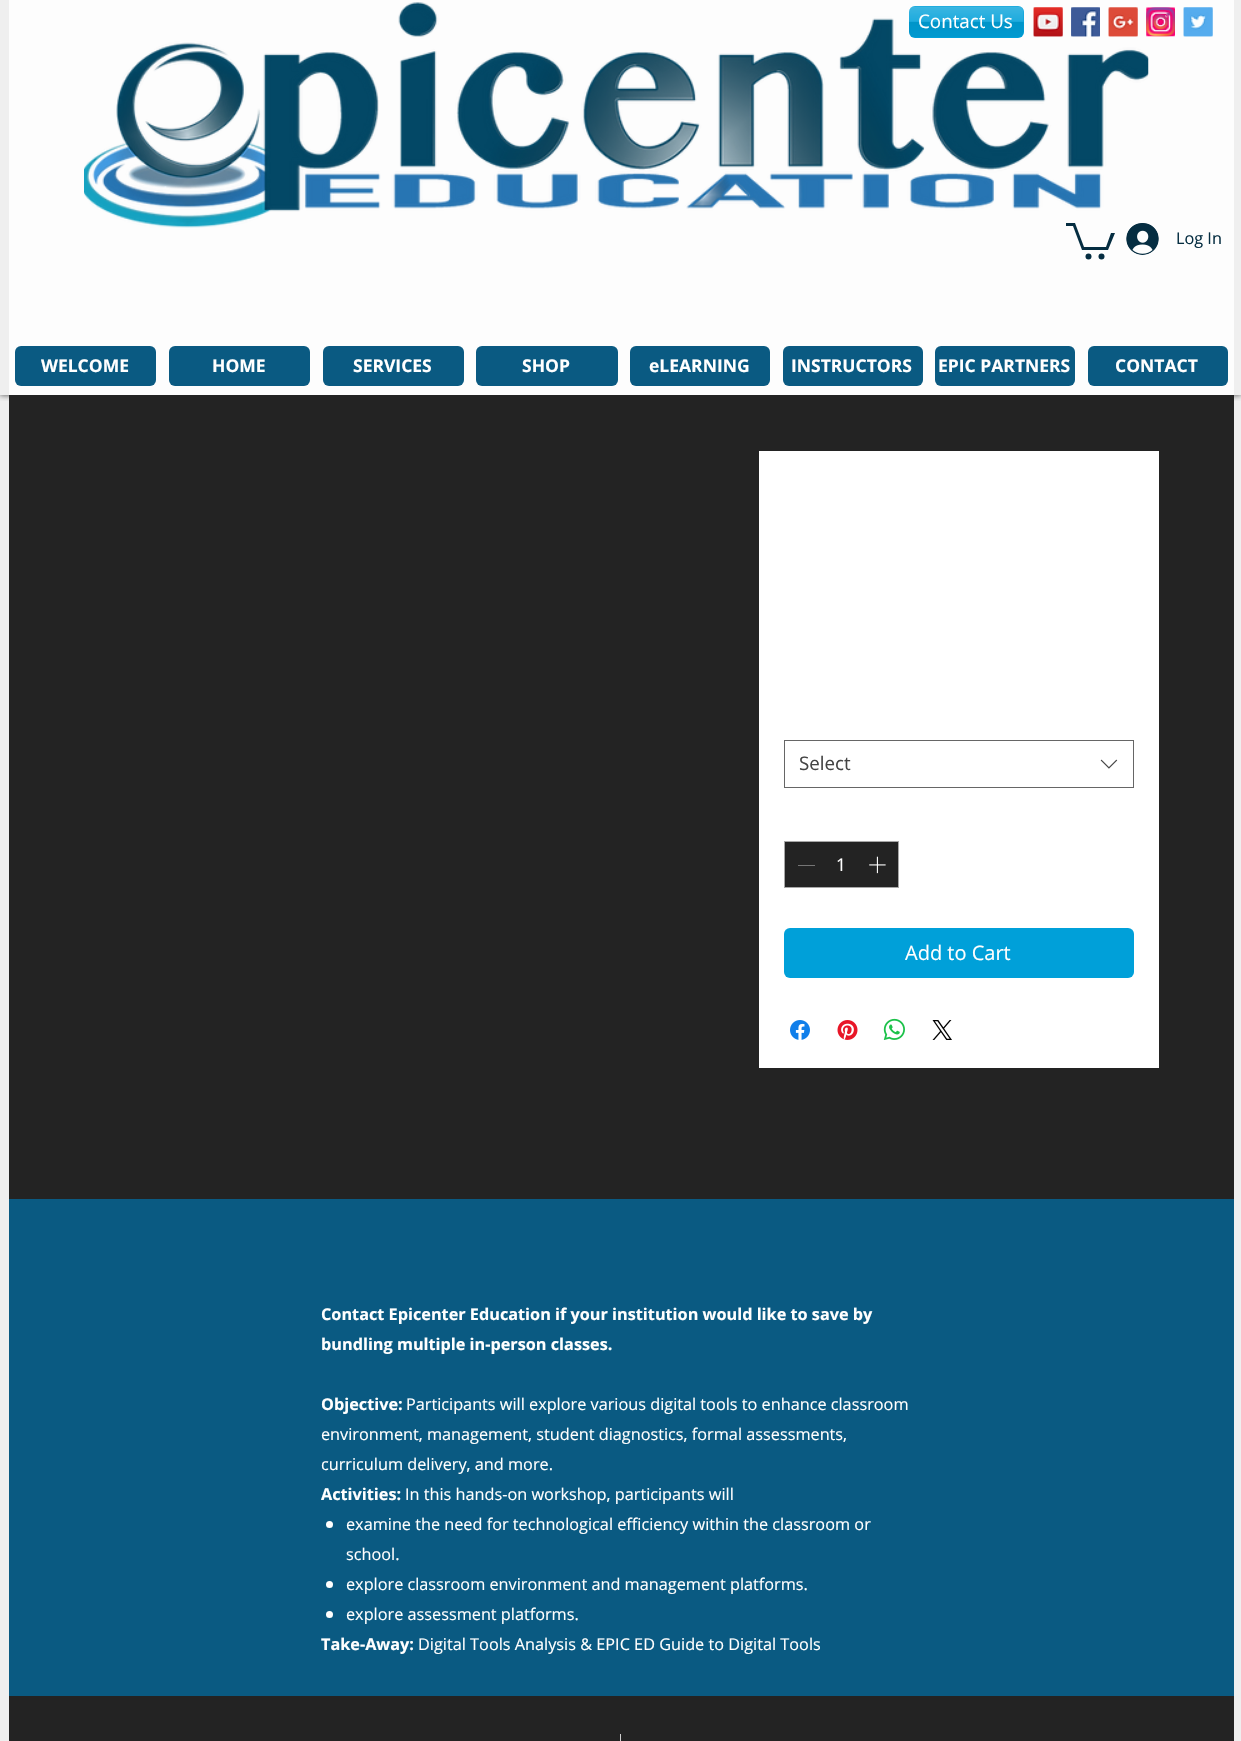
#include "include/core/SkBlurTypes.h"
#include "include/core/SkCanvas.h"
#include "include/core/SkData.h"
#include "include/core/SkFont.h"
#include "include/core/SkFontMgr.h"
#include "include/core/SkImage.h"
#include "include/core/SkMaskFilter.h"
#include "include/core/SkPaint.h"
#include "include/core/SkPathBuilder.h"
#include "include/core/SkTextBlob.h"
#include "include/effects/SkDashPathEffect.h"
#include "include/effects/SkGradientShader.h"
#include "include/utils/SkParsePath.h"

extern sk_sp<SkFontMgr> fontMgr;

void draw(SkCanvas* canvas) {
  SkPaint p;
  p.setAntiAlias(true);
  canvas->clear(SkColorSetRGB(239, 239, 239));
  canvas->save();
  canvas->clipRect(SkRect::MakeLTRB(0, 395, 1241, 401));
  p.setColor(SkColorSetARGB(179, 0, 0, 0));
  p.setMaskFilter(SkMaskFilter::MakeBlur(kNormal_SkBlurStyle, 3));
  canvas->drawRect(SkRect::MakeLTRB(0, 0, 1241, 395), p);
  p.setMaskFilter(nullptr);
  canvas->restore();
  p.setColor(SkColorSetRGB(253, 253, 253));
  canvas->drawRect(SkRect::MakeLTRB(9, 0, 1234, 395), p);
  canvas->drawImageRect(SkImages::DeferredFromEncodedData(SkData::MakeFromFileName("images/1.png")), SkRect::MakeLTRB(84, 2, 1149, 228), SkSamplingOptions());
  canvas->drawImageRect(SkImages::DeferredFromEncodedData(SkData::MakeFromFileName("images/2.png")), SkRect::MakeLTRB(1033, 7, 1063, 37), SkSamplingOptions());
  canvas->drawImageRect(SkImages::DeferredFromEncodedData(SkData::MakeFromFileName("images/3.png")), SkRect::MakeLTRB(1071, 7, 1100, 37), SkSamplingOptions());
  canvas->drawImageRect(SkImages::DeferredFromEncodedData(SkData::MakeFromFileName("images/4.png")), SkRect::MakeLTRB(1108, 7, 1138, 37), SkSamplingOptions());
  canvas->drawImageRect(SkImages::DeferredFromEncodedData(SkData::MakeFromFileName("images/5.png")), SkRect::MakeLTRB(1146, 7, 1175, 37), SkSamplingOptions());
  canvas->drawImageRect(SkImages::DeferredFromEncodedData(SkData::MakeFromFileName("images/6.png")), SkRect::MakeLTRB(1183, 7, 1213, 37), SkSamplingOptions());
  p.setColor(SkColorSetRGB(0, 160, 217));
  canvas->drawRoundRect(SkRect::MakeLTRB(909, 6, 1024, 38), 6, 6, p);
  canvas->drawImageRect(SkImages::DeferredFromEncodedData(SkData::MakeFromFileName("images/7.png")), SkRect::MakeLTRB(909, 6, 1024, 37), SkSamplingOptions());
  canvas->drawImageRect(SkImages::DeferredFromEncodedData(SkData::MakeFromFileName("images/8.png")), SkRect::MakeLTRB(1033, 7, 1063, 37), SkSamplingOptions());
  canvas->drawImageRect(SkImages::DeferredFromEncodedData(SkData::MakeFromFileName("images/9.png")), SkRect::MakeLTRB(1071, 7, 1100, 37), SkSamplingOptions());
  canvas->drawImageRect(SkImages::DeferredFromEncodedData(SkData::MakeFromFileName("images/10.png")), SkRect::MakeLTRB(1108, 7, 1138, 37), SkSamplingOptions());
  canvas->drawImageRect(SkImages::DeferredFromEncodedData(SkData::MakeFromFileName("images/11.png")), SkRect::MakeLTRB(1146, 7, 1175, 37), SkSamplingOptions());
  canvas->drawImageRect(SkImages::DeferredFromEncodedData(SkData::MakeFromFileName("images/12.png")), SkRect::MakeLTRB(1183, 7, 1213, 37), SkSamplingOptions());
  p.setColor(SkColorSetRGB(5, 45, 65));
  canvas->drawPath(SkPathBuilder().moveTo(1115, 233).lineTo(1108, 250).lineTo(1082, 250).lineTo(1073, 226).lineTo(1066, 226).lineTo(1066, 223).lineTo(1075, 223).lineTo(1084, 247).lineTo(1106, 247).lineTo(1111, 233).detach(), p);
  canvas->drawCircle(1101.5f, 256.5f, 3, p);
  canvas->drawCircle(1088.5f, 256.5f, 3, p);
  canvas->drawImageRect(SkImages::DeferredFromEncodedData(SkData::MakeFromFileName("images/13.png")), SkRect::MakeLTRB(1126, 223, 1159, 255), SkSamplingOptions());
  p.setColor(SkColorSetRGB(10, 90, 130));
  canvas->drawRoundRect(SkRect::MakeLTRB(15, 346, 156, 386), 6, 6, p);
  canvas->drawRoundRect(SkRect::MakeLTRB(169, 346, 310, 386), 6, 6, p);
  canvas->drawRoundRect(SkRect::MakeLTRB(323, 346, 464, 386), 6, 6, p);
  canvas->drawRoundRect(SkRect::MakeLTRB(476, 346, 618, 386), 6, 6, p);
  canvas->drawRoundRect(SkRect::MakeLTRB(630, 346, 770, 386), 6, 6, p);
  canvas->drawRoundRect(SkRect::MakeLTRB(783, 346, 923, 386), 6, 6, p);
  canvas->drawRoundRect(SkRect::MakeLTRB(935, 346, 1075, 386), 6, 6, p);
  canvas->drawRoundRect(SkRect::MakeLTRB(1088, 346, 1228, 386), 6, 6, p);
  canvas->drawRect(SkRect::MakeLTRB(9, 1199, 1234, 1696), p);
  p.setColor(SkColorSetRGB(35, 35, 35));
  canvas->drawRect(SkRect::MakeLTRB(9, 395, 1234, 1199), p);
  p.setColor(SK_ColorWHITE);
  canvas->drawRect(SkRect::MakeLTRB(759, 451, 1159, 1068), p);
  p.setStyle(SkPaint::kStroke_Style);
  p.setStrokeWidth(1);
  p.setColor(SkColorSetRGB(102, 102, 102));
  canvas->drawRect(SkRect::MakeLTRB(784.5f, 740.5f, 1133.5f, 787.5f), p);
  canvas->drawImageRect(SkImages::DeferredFromEncodedData(SkData::MakeFromFileName("images/14.png")), SkRect::MakeLTRB(1100, 759, 1118, 769), SkSamplingOptions());
  p.setStyle(SkPaint::kFill_Style);
  p.setColor(SkColorSetRGB(35, 35, 35));
  canvas->drawRect(SkRect::MakeLTRB(784.5f, 841.5f, 898.5f, 887.5f), p);
  p.setStyle(SkPaint::kStroke_Style);
  p.setColor(SkColorSetRGB(167, 167, 167));
  canvas->drawRect(SkRect::MakeLTRB(784.5f, 841.5f, 898.5f, 887.5f), p);
  p.setStyle(SkPaint::kFill_Style);
  p.setColor(SkColorSetRGB(117, 117, 117));
  canvas->drawRect(SkRect::MakeLTRB(798, 865, 815, 866), p);
  canvas->drawImageRect(SkImages::DeferredFromEncodedData(SkData::MakeFromFileName("images/15.png")), SkRect::MakeLTRB(869, 856, 886, 874), SkSamplingOptions());
  p.setColor(SkColorSetRGB(0, 160, 217));
  canvas->drawRoundRect(SkRect::MakeLTRB(784, 928, 1134, 978), 6, 6, p);
  canvas->drawImageRect(SkImages::DeferredFromEncodedData(SkData::MakeFromFileName("images/16.png")), SkRect::MakeLTRB(790, 1020, 810, 1040), SkSamplingOptions());
  canvas->drawImageRect(SkImages::DeferredFromEncodedData(SkData::MakeFromFileName("images/17.png")), SkRect::MakeLTRB(837, 1020, 858, 1040), SkSamplingOptions());
  canvas->drawImageRect(SkImages::DeferredFromEncodedData(SkData::MakeFromFileName("images/18.png")), SkRect::MakeLTRB(883, 1018, 905, 1040), SkSamplingOptions());
  canvas->drawImageRect(SkImages::DeferredFromEncodedData(SkData::MakeFromFileName("images/19.png")), SkRect::MakeLTRB(932, 1020, 952, 1040), SkSamplingOptions());
  p.setColor(SK_ColorWHITE);
  canvas->drawCircle(329.5f, 1524.5f, 3.5f, p);
  canvas->drawCircle(329.5f, 1584.5f, 3.5f, p);
  canvas->drawCircle(329.5f, 1614.5f, 3.5f, p);
  p.setColor(SkColorSetRGB(35, 35, 35));
  canvas->drawRect(SkRect::MakeLTRB(9, 1696, 1234, 1741), p);
  p.setColor(SkColorSetRGB(207, 207, 207));
  canvas->drawRect(SkRect::MakeLTRB(620, 1734, 621, 1741), p);
  SkFont font1(fontMgr->matchFamilyStyle("Open Sans", SkFontStyle::Normal()), 18.75f);
  font1.setSubpixel(true);
  p.setColor(SK_ColorWHITE);
  canvas->drawString("Contact Us", 918, 28, font1, p);
  SkFont font2(fontMgr->matchFamilyStyle("Open Sans", SkFontStyle::Normal()), 16.25f);
  font2.setSubpixel(true);
  p.setColor(SkColorSetRGB(5, 45, 65));
  canvas->drawString("Log In", 1176, 244, font2, p);
  SkFont font3(fontMgr->matchFamilyStyle("Open Sans", SkFontStyle::Bold()), 17.5f);
  font3.setSubpixel(true);
  p.setColor(SK_ColorWHITE);
  canvas->drawString("WELCOME", 41, 372, font3, p);
  canvas->drawString("HOME", 212, 372, font3, p);
  canvas->drawString("SERVICES", 353, 372, font3, p);
  canvas->drawString("SHOP", 522, 372, font3, p);
  canvas->drawString("eLEARNING", 649, 372, font3, p);
  canvas->drawString("INSTRUCTORS", 791, 372, font3, p);
  canvas->drawString("EPIC PARTNERS", 938, 372, font3, p);
  canvas->drawString("CONTACT", 1115, 372, font3, p);
  p.setColor(SkColorSetRGB(68, 68, 68));
  canvas->drawString("Select", 799, 770, font1, p);
  SkFont font4(fontMgr->matchFamilyStyle("Open Sans", SkFontStyle::Normal()), 17.5f);
  font4.setSubpixel(true);
  p.setColor(SK_ColorWHITE);
  canvas->drawString("1", 836, 871, font4, p);
  SkFont font5(fontMgr->matchFamilyStyle("Open Sans", SkFontStyle::Normal()), 20);
  font5.setSubpixel(true);
  canvas->drawString("Add to Cart", 905, 960, font5, p);
  SkFont font6(fontMgr->matchFamilyStyle("Open Sans", SkFontStyle::Bold()), 16.25f);
  font6.setSubpixel(true);
  canvas->drawString("Contact Epicenter Education if your institution would like to save by", 321, 1320, font6, p);
  canvas->drawString("bundling multiple in-person classes.", 321, 1350, font6, p);
  canvas->drawString("Objective:", 321, 1410, font6, p);
  canvas->drawString("Participants will explore various digital tools to enhance classroom", 406, 1410, font2, p);
  canvas->drawString("environment, management, student diagnostics, formal assessments,", 321, 1440, font2, p);
  canvas->drawString("curriculum delivery, and more.", 321, 1470, font2, p);
  canvas->drawString("Activities:", 321, 1500, font6, p);
  canvas->drawString("In this hands-on workshop, participants will", 405, 1500, font2, p);
  canvas->drawString("examine the need for technological efficiency within the classroom or", 346, 1530, font2, p);
  canvas->drawString("school.", 346, 1560, font2, p);
  canvas->drawString("explore classroom environment and management platforms.", 346, 1590, font2, p);
  canvas->drawString("explore assessment platforms.", 346, 1620, font2, p);
  canvas->drawString("Take-Away:", 321, 1650, font6, p);
  canvas->drawString("Digital Tools Analysis & EPIC ED Guide to Digital Tools", 418, 1650, font2, p);
}
